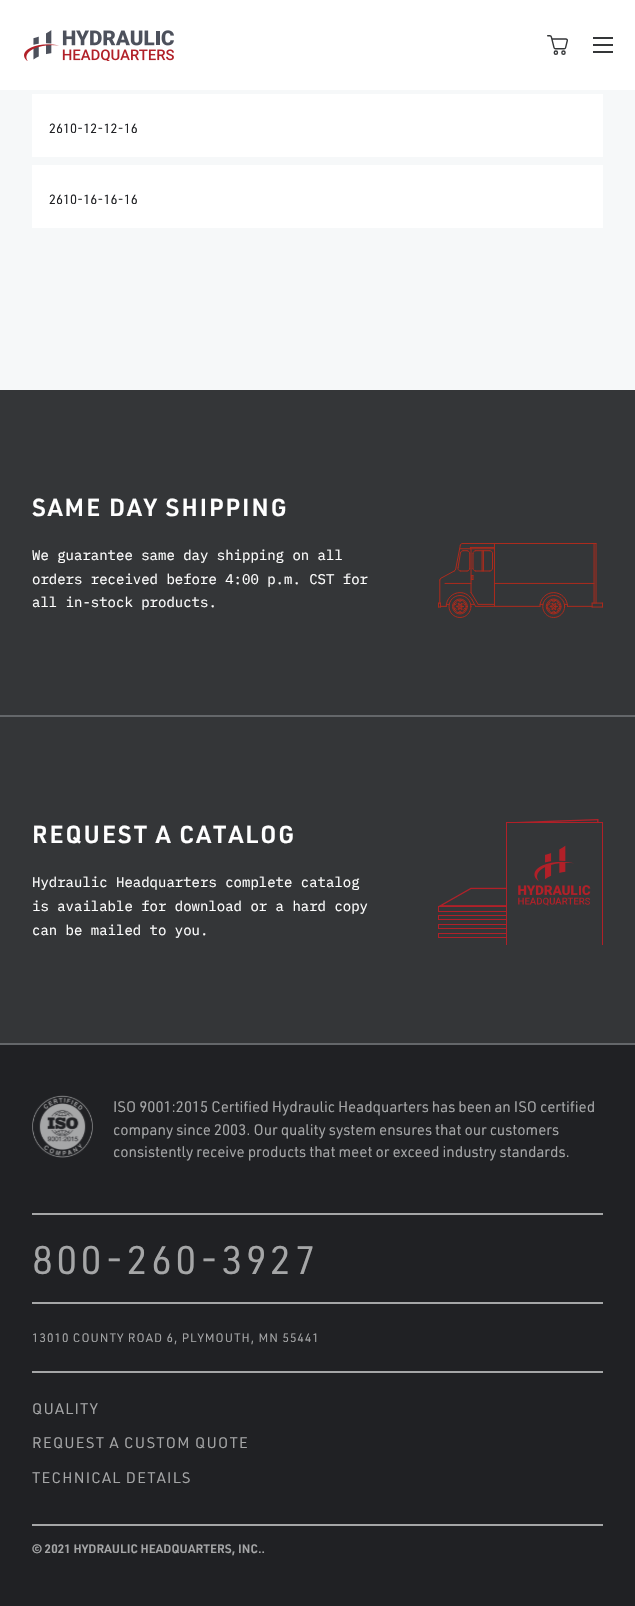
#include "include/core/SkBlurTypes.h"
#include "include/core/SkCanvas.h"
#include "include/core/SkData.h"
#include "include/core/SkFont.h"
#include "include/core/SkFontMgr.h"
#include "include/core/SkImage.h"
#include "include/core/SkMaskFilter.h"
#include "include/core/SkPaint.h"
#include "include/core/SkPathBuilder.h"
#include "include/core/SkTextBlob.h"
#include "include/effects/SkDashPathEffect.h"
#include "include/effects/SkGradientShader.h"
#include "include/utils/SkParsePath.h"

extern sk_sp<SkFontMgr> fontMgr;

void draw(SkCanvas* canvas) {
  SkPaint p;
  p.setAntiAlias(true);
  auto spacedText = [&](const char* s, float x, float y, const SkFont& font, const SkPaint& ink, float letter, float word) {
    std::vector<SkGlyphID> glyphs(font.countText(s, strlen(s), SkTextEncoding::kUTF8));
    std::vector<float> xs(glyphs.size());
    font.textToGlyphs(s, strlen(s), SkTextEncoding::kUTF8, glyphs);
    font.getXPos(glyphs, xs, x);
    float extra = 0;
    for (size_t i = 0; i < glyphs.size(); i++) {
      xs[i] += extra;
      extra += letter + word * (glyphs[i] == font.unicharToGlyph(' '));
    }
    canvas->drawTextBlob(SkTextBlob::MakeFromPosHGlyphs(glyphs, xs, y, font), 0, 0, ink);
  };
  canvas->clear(SkColorSetRGB(246, 248, 249));
  p.setColor(SK_ColorWHITE);
  canvas->drawRect(SkRect::MakeLTRB(0, 0, 635, 90), p);
  canvas->drawImageRect(SkImages::DeferredFromEncodedData(SkData::MakeFromFileName("images/1.png")), SkRect::MakeLTRB(24, 30, 174, 61), SkSamplingOptions());
  canvas->drawImageRect(SkImages::DeferredFromEncodedData(SkData::MakeFromFileName("images/2.png")), SkRect::MakeLTRB(547, 35, 568, 55), SkSamplingOptions());
  p.setColor(SkColorSetRGB(52, 54, 56));
  canvas->drawRect(SkRect::MakeLTRB(593, 37, 613, 39), p);
  canvas->drawRect(SkRect::MakeLTRB(593, 44, 613, 46), p);
  canvas->drawRect(SkRect::MakeLTRB(593, 51, 613, 53), p);
  p.setColor(SK_ColorWHITE);
  canvas->drawRect(SkRect::MakeLTRB(32, 94, 603, 157), p);
  canvas->drawRect(SkRect::MakeLTRB(32, 165, 603, 228), p);
  p.setColor(SkColorSetRGB(52, 54, 56));
  canvas->drawRect(SkRect::MakeLTRB(0, 390, 635, 1043), p);
  p.setColor(SkColorSetRGB(100, 103, 106));
  canvas->drawRect(SkRect::MakeLTRB(0, 1043, 635, 1045), p);
  canvas->drawImageRect(SkImages::DeferredFromEncodedData(SkData::MakeFromFileName("images/3.png")), SkRect::MakeLTRB(438, 543, 603, 618), SkSamplingOptions());
  canvas->drawRect(SkRect::MakeLTRB(0, 715, 635, 717), p);
  canvas->drawImageRect(SkImages::DeferredFromEncodedData(SkData::MakeFromFileName("images/4.png")), SkRect::MakeLTRB(438, 819, 603, 945), SkSamplingOptions());
  p.setColor(SkColorSetRGB(32, 33, 36));
  canvas->drawRect(SkRect::MakeLTRB(0, 1045, 635, 1606), p);
  canvas->drawImageRect(SkImages::DeferredFromEncodedData(SkData::MakeFromFileName("images/5.png")), SkRect::MakeLTRB(32, 1095, 93, 1158), SkSamplingOptions());
  p.setColor(SkColorSetRGB(165, 166, 167));
  canvas->drawRect(SkRect::MakeLTRB(32, 1213, 603, 1215), p);
  canvas->drawRect(SkRect::MakeLTRB(32, 1302, 603, 1304), p);
  canvas->drawRect(SkRect::MakeLTRB(32, 1371, 603, 1373), p);
  canvas->drawRect(SkRect::MakeLTRB(32, 1524, 603, 1526), p);
  SkFont font1(fontMgr->matchFamilyStyle("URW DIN", SkFontStyle::Normal()), 13);
  font1.setSubpixel(true);
  p.setColor(SkColorSetRGB(32, 33, 36));
  canvas->drawString("2610-12-12-16", 49, 133, font1, p);
  canvas->drawString("2610-16-16-16", 49, 204, font1, p);
  SkFont font2(fontMgr->matchFamilyStyle("URW DIN", SkFontStyle(600, SkFontStyle::kNormal_Width, SkFontStyle::kUpright_Slant)), 24);
  font2.setSubpixel(true);
  p.setColor(SK_ColorWHITE);
  spacedText("SAME DAY SHIPPING", 32, 516, font2, p, 2, 0);
  SkFont font3(fontMgr->matchFamilyStyle("IBM Plex Mono", SkFontStyle::Normal()), 14);
  font3.setSubpixel(true);
  canvas->drawString("We guarantee same day shipping on all", 32, 560, font3, p);
  canvas->drawString("orders received before 4:00 p.m. CST for", 32, 584, font3, p);
  canvas->drawString("all in-stock products.", 32, 607, font3, p);
  spacedText("REQUEST A CATALOG", 32, 843, font2, p, 2, 0);
  canvas->drawString("Hydraulic Headquarters complete catalog", 32, 887, font3, p);
  canvas->drawString("is available for download or a hard copy", 32, 911, font3, p);
  canvas->drawString("can be mailed to you.", 32, 935, font3, p);
  SkFont font4(fontMgr->matchFamilyStyle("URW DIN", SkFontStyle::Normal()), 15);
  font4.setSubpixel(true);
  p.setColor(SkColorSetRGB(165, 166, 167));
  canvas->drawString("ISO 9001:2015 Certified Hydraulic Headquarters has been an ISO certified", 113, 1112, font4, p);
  canvas->drawString("company since 2003. Our quality system ensures that our customers", 113, 1135, font4, p);
  canvas->drawString("consistently receive products that meet or exceed industry standards.", 113, 1157, font4, p);
  SkFont font5(fontMgr->matchFamilyStyle("URW DIN", SkFontStyle::Normal()), 39);
  font5.setSubpixel(true);
  spacedText("800-260-3927", 32, 1274, font5, p, 3.25f, 0);
  SkFont font6(fontMgr->matchFamilyStyle("URW DIN", SkFontStyle::Normal()), 12);
  font6.setSubpixel(true);
  spacedText("13010 COUNTY ROAD 6, PLYMOUTH, MN 55441", 32, 1342, font6, p, 1, 0);
  spacedText("QUALITY", 32, 1414, font4, p, 1.25f, 0);
  spacedText("REQUEST A CUSTOM QUOTE", 32, 1448, font4, p, 1.25f, 0);
  spacedText("TECHNICAL DETAILS", 32, 1483, font4, p, 1.25f, 0);
  SkFont font7(fontMgr->matchFamilyStyle("URW DIN", SkFontStyle(600, SkFontStyle::kNormal_Width, SkFontStyle::kUpright_Slant)), 12);
  font7.setSubpixel(true);
  spacedText("© 2021 HYDRAULIC HEADQUARTERS, INC..", 32, 1553, font7, p, 0.1f, 0);
}
